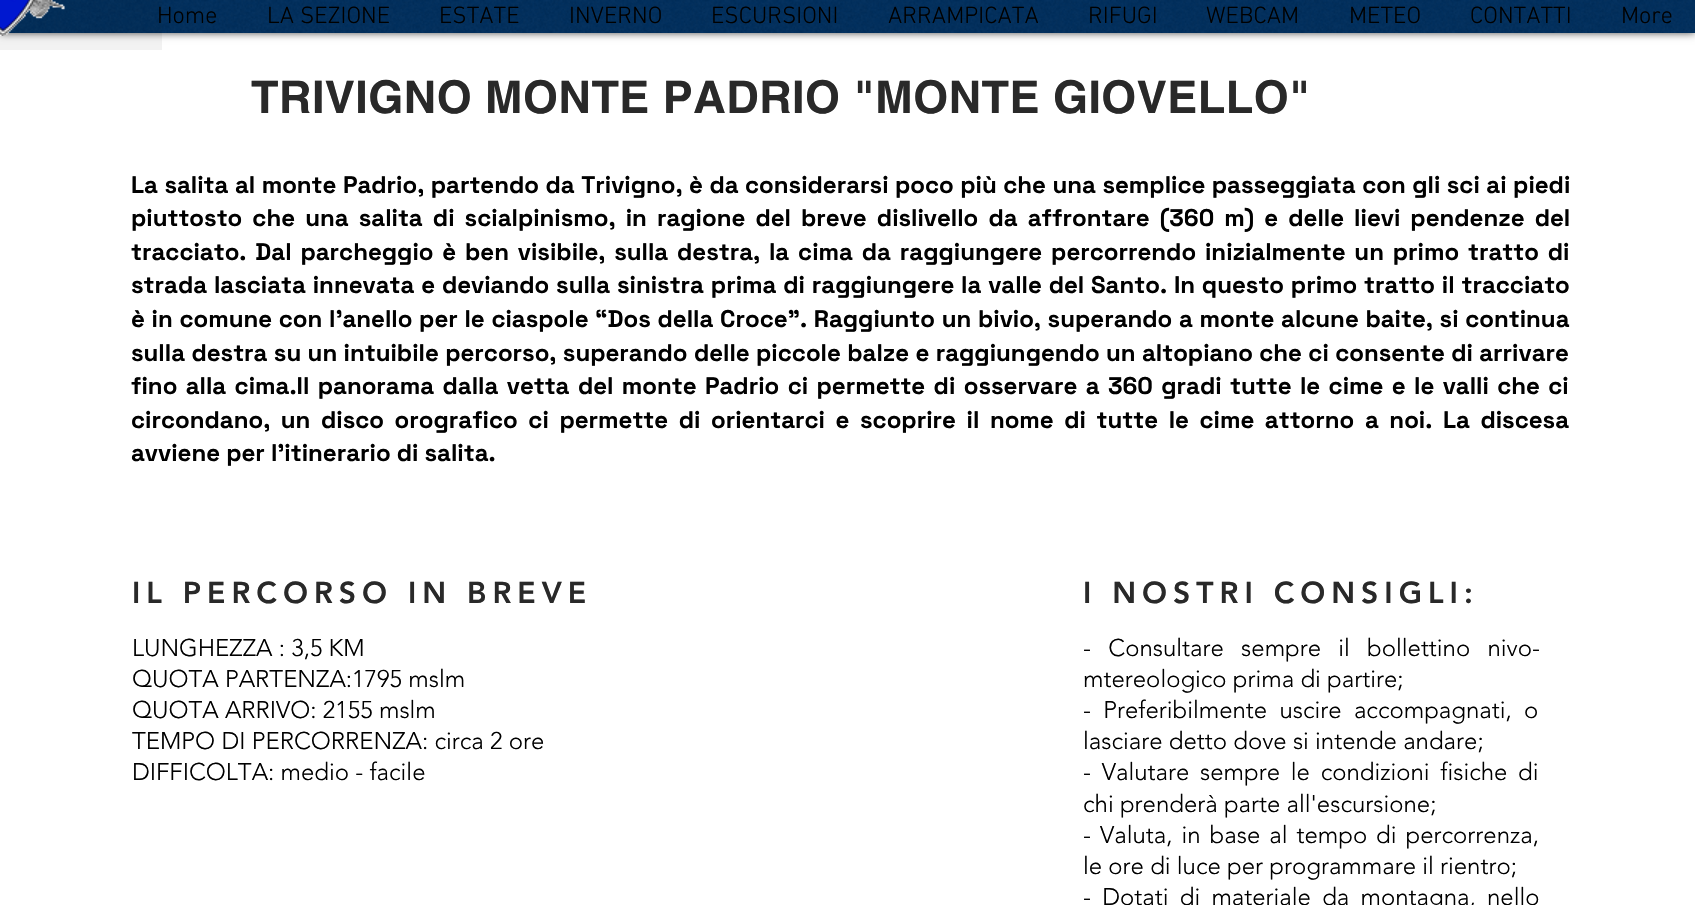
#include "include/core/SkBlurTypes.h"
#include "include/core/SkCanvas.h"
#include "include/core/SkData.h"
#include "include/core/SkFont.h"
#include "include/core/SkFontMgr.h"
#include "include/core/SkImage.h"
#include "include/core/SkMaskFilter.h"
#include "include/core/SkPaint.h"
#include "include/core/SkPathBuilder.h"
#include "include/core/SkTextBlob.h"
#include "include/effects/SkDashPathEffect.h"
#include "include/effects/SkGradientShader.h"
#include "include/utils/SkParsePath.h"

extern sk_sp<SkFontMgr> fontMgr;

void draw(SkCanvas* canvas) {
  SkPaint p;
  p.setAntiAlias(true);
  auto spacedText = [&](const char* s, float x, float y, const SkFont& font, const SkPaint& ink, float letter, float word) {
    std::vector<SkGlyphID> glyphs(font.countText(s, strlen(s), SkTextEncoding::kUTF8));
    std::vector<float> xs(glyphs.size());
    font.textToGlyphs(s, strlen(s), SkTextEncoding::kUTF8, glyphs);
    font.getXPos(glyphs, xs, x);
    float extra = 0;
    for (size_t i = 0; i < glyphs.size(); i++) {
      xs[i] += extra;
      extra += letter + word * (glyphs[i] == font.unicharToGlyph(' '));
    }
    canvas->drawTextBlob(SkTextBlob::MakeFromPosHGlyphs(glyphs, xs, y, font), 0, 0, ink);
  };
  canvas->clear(SK_ColorWHITE);
  p.setColor(SkColorSetARGB(179, 0, 0, 0));
  p.setMaskFilter(SkMaskFilter::MakeBlur(kNormal_SkBlurStyle, 4));
  canvas->drawRect(SkRect::MakeLTRB(0, 0, 1695, 33), p);
  p.setMaskFilter(nullptr);
  p.setColor(SkColorSetRGB(0, 46, 93));
  canvas->drawRect(SkRect::MakeLTRB(7, 0, 1695, 33), p);
  canvas->drawImageRect(SkImages::DeferredFromEncodedData(SkData::MakeFromFileName("images/2.png")), SkRect::MakeLTRB(7, 0, 1695, 33), SkSamplingOptions());
  p.setColor(SkColorSetARGB(13, 0, 0, 0));
  canvas->drawRect(SkRect::MakeLTRB(0, 0, 162, 50), p);
  canvas->drawImageRect(SkImages::DeferredFromEncodedData(SkData::MakeFromFileName("images/1.png")), SkRect::MakeLTRB(0, 0, 65, 36), SkSamplingOptions());
  SkFont font1(fontMgr->matchFamilyStyle("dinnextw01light", SkFontStyle(300, SkFontStyle::kNormal_Width, SkFontStyle::kUpright_Slant)), 24);
  font1.setSubpixel(true);
  p.setColor(SK_ColorBLACK);
  canvas->drawString("Home", 157, 23, font1, p);
  canvas->drawString("LA SEZIONE", 267, 23, font1, p);
  canvas->drawString("ESTATE", 439, 23, font1, p);
  canvas->drawString("INVERNO", 569, 23, font1, p);
  canvas->drawString("ESCURSIONI", 711, 23, font1, p);
  canvas->drawString("ARRAMPICATA", 888, 23, font1, p);
  canvas->drawString("RIFUGI", 1088, 23, font1, p);
  canvas->drawString("WEBCAM", 1206, 23, font1, p);
  canvas->drawString("METEO", 1349, 23, font1, p);
  canvas->drawString("CONTATTI", 1470, 23, font1, p);
  canvas->drawString("More", 1621, 23, font1, p);
  SkFont font2(fontMgr->matchFamilyStyle("helvetica", SkFontStyle::Bold()), 45);
  font2.setSubpixel(true);
  p.setColor(SkColorSetRGB(41, 41, 41));
  spacedText("TRIVIGNO MONTE PADRIO \"MONTE GIOVELLO\"", 251, 113, font2, p, 0.45f, 0);
  SkFont font3(fontMgr->matchFamilyStyle("Space Grotesk", SkFontStyle::Bold()), 24);
  font3.setSubpixel(true);
  p.setColor(SK_ColorBLACK);
  spacedText("La salita al monte Padrio, partendo da Trivigno, è da considerarsi poco più che una semplice passeggiata con gli sci ai piedi", 131, 193, font3, p, 0, 0.4f);
  spacedText("piuttosto che una salita di scialpinismo, in ragione del breve dislivello da affrontare (360 m) e delle lievi pendenze del", 131, 226, font3, p, 0, 4);
  spacedText("tracciato. Dal parcheggio è ben visibile, sulla destra, la cima da raggiungere percorrendo inizialmente un primo tratto di", 131, 260, font3, p, 0, 2.75f);
  spacedText("strada lasciata innevata e deviando sulla sinistra prima di raggiungere la valle del Santo. In questo primo tratto il tracciato", 131, 293, font3, p, 0, 0.75f);
  spacedText("è in comune con l’anello per le ciaspole “Dos della Croce”. Raggiunto un bivio, superando a monte alcune baite, si continua", 131, 327, font3, p, 0, 0.6f);
  spacedText("sulla destra su un intuibile percorso, superando delle piccole balze e raggiungendo un altopiano che ci consente di arrivare", 131, 361, font3, p, 0, 0.3f);
  spacedText("fino alla cima.Il panorama dalla vetta del monte Padrio ci permette di osservare a 360 gradi tutte le cime e le valli che ci", 131, 394, font3, p, 0, 2.3f);
  spacedText("circondano, un disco orografico ci permette di orientarci e scoprire il nome di tutte le cime attorno a noi. La discesa", 131, 428, font3, p, 0, 4.5f);
  canvas->drawString("avviene per l’itinerario di salita.", 131, 461, font3, p);
  SkFont font4(fontMgr->matchFamilyStyle("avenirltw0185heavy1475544", SkFontStyle(900, SkFontStyle::kNormal_Width, SkFontStyle::kUpright_Slant)), 30);
  font4.setSubpixel(true);
  p.setColor(SkColorSetRGB(41, 41, 41));
  spacedText("IL PERCORSO IN BREVE", 132, 603, font4, p, 6, 0);
  spacedText("I NOSTRI CONSIGLI:", 1083, 603, font4, p, 6, 0);
  SkFont font5(fontMgr->matchFamilyStyle("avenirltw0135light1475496", SkFontStyle(300, SkFontStyle::kNormal_Width, SkFontStyle::kUpright_Slant)), 24);
  font5.setSubpixel(true);
  p.setColor(SK_ColorBLACK);
  canvas->drawString("LUNGHEZZA : 3,5 KM", 132, 656, font5, p);
  canvas->drawString("QUOTA PARTENZA:1795 mslm", 132, 687, font5, p);
  canvas->drawString("QUOTA ARRIVO: 2155 mslm", 132, 718, font5, p);
  canvas->drawString("TEMPO DI PERCORRENZA: circa 2 ore", 132, 749, font5, p);
  canvas->drawString("DIFFICOLTA: medio - facile", 132, 780, font5, p);
  spacedText("- Consultare sempre il bollettino nivo-", 1083, 656, font5, p, 0, 11);
  canvas->drawString("mtereologico prima di partire;", 1083, 687, font5, p);
  spacedText("- Preferibilmente uscire accompagnati, o", 1083, 718, font5, p, 0, 6);
  canvas->drawString("lasciare detto dove si intende andare;", 1083, 749, font5, p);
  spacedText("- Valutare sempre le condizioni fisiche di", 1083, 780, font5, p, 0, 4.5f);
  canvas->drawString("chi prenderà parte all'escursione;", 1083, 812, font5, p);
  spacedText("- Valuta, in base al tempo di percorrenza,", 1083, 843, font5, p, 0, 2.75f);
  canvas->drawString("le ore di luce per programmare il rientro;", 1083, 874, font5, p);
  spacedText("- Dotati di materiale da montagna, nello", 1083, 905, font5, p, 0, 5);
}
